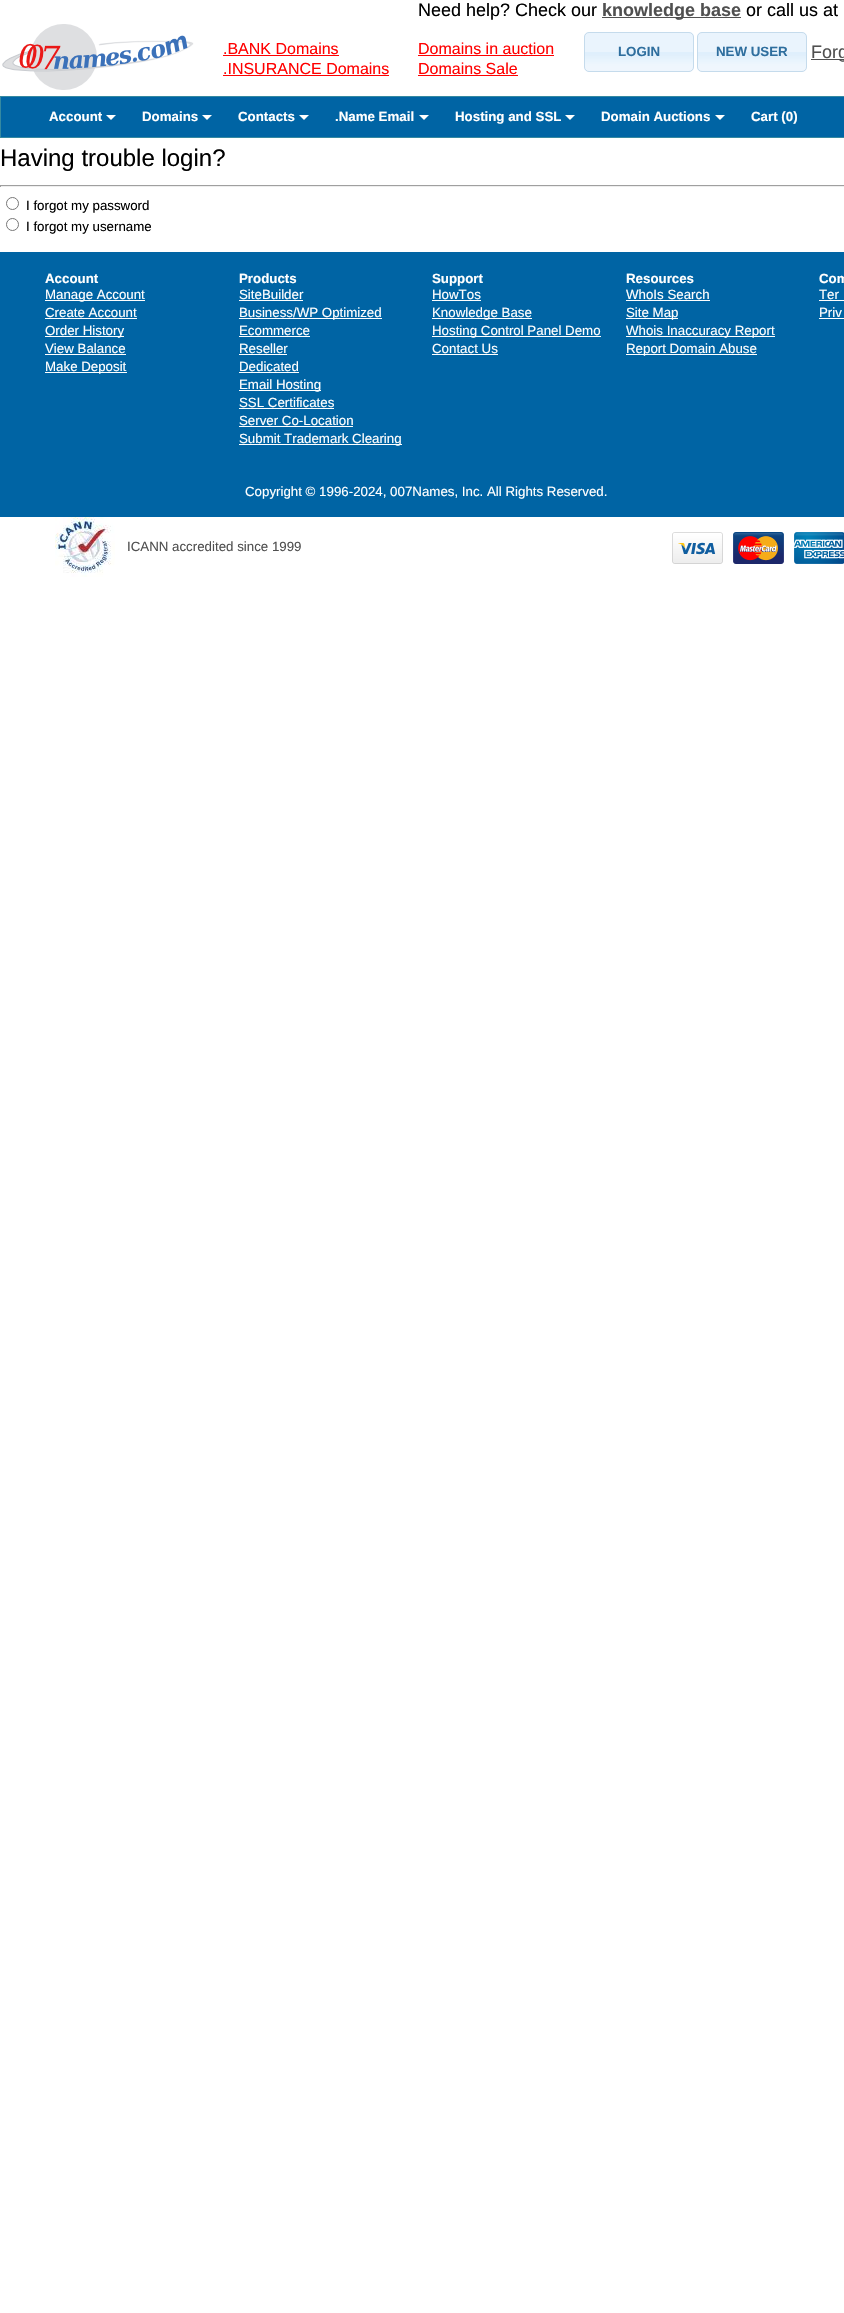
#include "include/core/SkBlurTypes.h"
#include "include/core/SkCanvas.h"
#include "include/core/SkData.h"
#include "include/core/SkFont.h"
#include "include/core/SkFontMgr.h"
#include "include/core/SkImage.h"
#include "include/core/SkMaskFilter.h"
#include "include/core/SkPaint.h"
#include "include/core/SkPathBuilder.h"
#include "include/core/SkTextBlob.h"
#include "include/effects/SkDashPathEffect.h"
#include "include/effects/SkGradientShader.h"
#include "include/utils/SkParsePath.h"

extern sk_sp<SkFontMgr> fontMgr;

void draw(SkCanvas* canvas) {
  SkPaint p;
  p.setAntiAlias(true);
  canvas->clear(SK_ColorWHITE);
  p.setColor(SkColorSetRGB(80, 80, 80));
  canvas->drawRect(SkRect::MakeLTRB(602, 17, 741, 18), p);
  canvas->drawImageRect(SkImages::DeferredFromEncodedData(SkData::MakeFromFileName("images/1.png")), SkRect::MakeLTRB(2, 24, 194, 90), SkSamplingOptions());
  p.setColor(SkColorSetRGB(255, 0, 0));
  canvas->drawRect(SkRect::MakeLTRB(223, 55, 339, 56), p);
  canvas->drawRect(SkRect::MakeLTRB(223, 75, 389, 76), p);
  canvas->drawRect(SkRect::MakeLTRB(418, 55, 554, 56), p);
  canvas->drawRect(SkRect::MakeLTRB(418, 75, 518, 76), p);
  canvas->drawImageRect(SkImages::DeferredFromEncodedData(SkData::MakeFromFileName("images/2.png")), SkRect::MakeLTRB(584, 32, 694, 72), SkSamplingOptions());
  p.setStyle(SkPaint::kStroke_Style);
  p.setStrokeWidth(1);
  p.setColor(SkColorSetRGB(197, 219, 236));
  canvas->drawRoundRect(SkRect::MakeLTRB(584.5f, 32.5f, 693.5f, 71.5f), 4.5f, 4.5f, p);
  canvas->drawImageRect(SkImages::DeferredFromEncodedData(SkData::MakeFromFileName("images/3.png")), SkRect::MakeLTRB(697, 32, 807, 72), SkSamplingOptions());
  canvas->drawRoundRect(SkRect::MakeLTRB(697.5f, 32.5f, 806.5f, 71.5f), 4.5f, 4.5f, p);
  p.setStyle(SkPaint::kFill_Style);
  p.setColor(SkColorSetRGB(80, 80, 80));
  canvas->drawRect(SkRect::MakeLTRB(811, 59, 844, 60), p);
  p.setColor(SkColorSetRGB(0, 100, 164));
  canvas->drawRect(SkRect::MakeLTRB(0.5f, 96.5f, 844.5f, 137.5f), p);
  p.setStyle(SkPaint::kStroke_Style);
  p.setColor(SkColorSetRGB(53, 137, 161));
  canvas->drawRect(SkRect::MakeLTRB(0.5f, 96.5f, 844.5f, 137.5f), p);
  p.setStyle(SkPaint::kFill_Style);
  p.setColor(SK_ColorWHITE);
  canvas->drawPath(SkPathBuilder().moveTo(106, 115).lineTo(116, 115).lineTo(111, 120).close().detach(), p);
  canvas->drawPath(SkPathBuilder().moveTo(202, 115).lineTo(212, 115).lineTo(207, 120).close().detach(), p);
  canvas->drawPath(SkPathBuilder().moveTo(299, 115).lineTo(309, 115).lineTo(304, 120).close().detach(), p);
  canvas->drawPath(SkPathBuilder().moveTo(419, 115).lineTo(429, 115).lineTo(424, 120).close().detach(), p);
  canvas->drawPath(SkPathBuilder().moveTo(565, 115).lineTo(575, 115).lineTo(570, 120).close().detach(), p);
  canvas->drawPath(SkPathBuilder().moveTo(715, 115).lineTo(725, 115).lineTo(720, 120).close().detach(), p);
  p.setColor(SkColorSetRGB(159, 159, 159));
  canvas->drawRect(SkRect::MakeLTRB(0, 185, 844, 186), p);
  p.setColor(SkColorSetRGB(238, 238, 238));
  canvas->drawRect(SkRect::MakeLTRB(0, 186, 844, 187), p);
  p.setColor(SkColorSetRGB(159, 159, 159));
  canvas->drawRect(SkRect::MakeLTRB(0, 185, 1, 187), p);
  p.setStyle(SkPaint::kStroke_Style);
  p.setColor(SkColorSetRGB(118, 118, 118));
  canvas->drawCircle(12.5f, 203.5f, 6, p);
  canvas->drawCircle(12.5f, 224.5f, 6, p);
  p.setStyle(SkPaint::kFill_Style);
  p.setColor(SkColorSetRGB(0, 100, 164));
  canvas->drawRect(SkRect::MakeLTRB(0, 252, 844, 517), p);
  p.setColor(SK_ColorWHITE);
  canvas->drawRect(SkRect::MakeLTRB(45, 300, 145, 301), p);
  canvas->drawRect(SkRect::MakeLTRB(45, 318, 137, 319), p);
  canvas->drawRect(SkRect::MakeLTRB(45, 336, 124, 337), p);
  canvas->drawRect(SkRect::MakeLTRB(45, 354, 126, 355), p);
  canvas->drawRect(SkRect::MakeLTRB(45, 372, 127, 373), p);
  canvas->drawRect(SkRect::MakeLTRB(239, 300, 303, 301), p);
  canvas->drawRect(SkRect::MakeLTRB(239, 318, 382, 319), p);
  canvas->drawRect(SkRect::MakeLTRB(239, 336, 310, 337), p);
  canvas->drawRect(SkRect::MakeLTRB(239, 354, 287, 355), p);
  canvas->drawRect(SkRect::MakeLTRB(239, 372, 299, 373), p);
  canvas->drawRect(SkRect::MakeLTRB(239, 390, 321, 391), p);
  canvas->drawRect(SkRect::MakeLTRB(239, 408, 334, 409), p);
  canvas->drawRect(SkRect::MakeLTRB(239, 426, 353, 427), p);
  canvas->drawRect(SkRect::MakeLTRB(239, 444, 402, 445), p);
  canvas->drawRect(SkRect::MakeLTRB(432, 300, 481, 301), p);
  canvas->drawRect(SkRect::MakeLTRB(432, 318, 532, 319), p);
  canvas->drawRect(SkRect::MakeLTRB(432, 336, 601, 337), p);
  canvas->drawRect(SkRect::MakeLTRB(432, 354, 498, 355), p);
  canvas->drawRect(SkRect::MakeLTRB(626, 300, 710, 301), p);
  canvas->drawRect(SkRect::MakeLTRB(626, 318, 678, 319), p);
  canvas->drawRect(SkRect::MakeLTRB(626, 336, 775, 337), p);
  canvas->drawRect(SkRect::MakeLTRB(626, 354, 757, 355), p);
  canvas->drawRect(SkRect::MakeLTRB(819, 300, 844, 301), p);
  canvas->drawRect(SkRect::MakeLTRB(819, 318, 844, 319), p);
  canvas->drawImageRect(SkImages::DeferredFromEncodedData(SkData::MakeFromFileName("images/4.png")), SkRect::MakeLTRB(55, 517, 115, 577), SkSamplingOptions());
  canvas->drawImageRect(SkImages::DeferredFromEncodedData(SkData::MakeFromFileName("images/5.png")), SkRect::MakeLTRB(672, 532, 723, 564), SkSamplingOptions());
  canvas->drawImageRect(SkImages::DeferredFromEncodedData(SkData::MakeFromFileName("images/6.png")), SkRect::MakeLTRB(733, 532, 784, 564), SkSamplingOptions());
  canvas->drawImageRect(SkImages::DeferredFromEncodedData(SkData::MakeFromFileName("images/7.png")), SkRect::MakeLTRB(794, 532, 844, 564), SkSamplingOptions());
  SkFont font1(fontMgr->matchFamilyStyle("Liberation Sans", SkFontStyle::Normal()), 18);
  font1.setSubpixel(true);
  p.setColor(SK_ColorBLACK);
  canvas->drawString("Need help? Check our", 418, 16, font1, p);
  SkFont font2(fontMgr->matchFamilyStyle("Liberation Sans", SkFontStyle::Bold()), 18);
  font2.setSubpixel(true);
  p.setColor(SkColorSetRGB(80, 80, 80));
  canvas->drawString("knowledge base", 602, 16, font2, p);
  p.setColor(SK_ColorBLACK);
  canvas->drawString("or call us at", 746, 16, font1, p);
  SkFont font3(fontMgr->matchFamilyStyle("Liberation Sans", SkFontStyle::Normal()), 16);
  font3.setSubpixel(true);
  p.setColor(SkColorSetRGB(255, 0, 0));
  canvas->drawString(".BANK Domains", 223, 54, font3, p);
  canvas->drawString(".INSURANCE Domains", 223, 74, font3, p);
  canvas->drawString("Domains in auction", 418, 54, font3, p);
  canvas->drawString("Domains Sale", 418, 74, font3, p);
  SkFont font4(fontMgr->matchFamilyStyle("Liberation Sans", SkFontStyle::Bold()), 13.3f);
  font4.setSubpixel(true);
  p.setColor(SkColorSetRGB(46, 110, 158));
  canvas->drawString("LOGIN", 618, 56, font4, p);
  canvas->drawString("NEW USER", 716, 56, font4, p);
  p.setColor(SkColorSetRGB(80, 80, 80));
  canvas->drawString("Forg", 811, 58, font1, p);
  p.setColor(SK_ColorWHITE);
  canvas->drawString("Account", 49, 121, font4, p);
  canvas->drawString("Domains", 142, 121, font4, p);
  canvas->drawString("Contacts", 238, 121, font4, p);
  canvas->drawString(".Name Email", 335, 121, font4, p);
  canvas->drawString("Hosting and SSL", 455, 121, font4, p);
  canvas->drawString("Domain Auctions", 601, 121, font4, p);
  canvas->drawString("Cart (0)", 751, 121, font4, p);
  SkFont font5(fontMgr->matchFamilyStyle("Liberation Sans", SkFontStyle::Normal()), 24);
  font5.setSubpixel(true);
  p.setColor(SK_ColorBLACK);
  canvas->drawString("Having trouble login?", 0, 166, font5, p);
  SkFont font6(fontMgr->matchFamilyStyle("Liberation Sans", SkFontStyle::Normal()), 13.3f);
  font6.setSubpixel(true);
  canvas->drawString("I forgot my password", 26, 210, font6, p);
  canvas->drawString("I forgot my username", 26, 231, font6, p);
  p.setColor(SK_ColorWHITE);
  canvas->drawString("Account", 45, 283, font4, p);
  canvas->drawString("Manage Account", 45, 299, font6, p);
  canvas->drawString("Create Account", 45, 317, font6, p);
  canvas->drawString("Order History", 45, 335, font6, p);
  canvas->drawString("View Balance", 45, 353, font6, p);
  canvas->drawString("Make Deposit", 45, 371, font6, p);
  canvas->drawString("Products", 239, 283, font4, p);
  canvas->drawString("SiteBuilder", 239, 299, font6, p);
  canvas->drawString("Business/WP Optimized", 239, 317, font6, p);
  canvas->drawString("Ecommerce", 239, 335, font6, p);
  canvas->drawString("Reseller", 239, 353, font6, p);
  canvas->drawString("Dedicated", 239, 371, font6, p);
  canvas->drawString("Email Hosting", 239, 389, font6, p);
  canvas->drawString("SSL Certificates", 239, 407, font6, p);
  canvas->drawString("Server Co-Location", 239, 425, font6, p);
  canvas->drawString("Submit Trademark Clearing", 239, 443, font6, p);
  canvas->drawString("Support", 432, 283, font4, p);
  canvas->drawString("HowTos", 432, 299, font6, p);
  canvas->drawString("Knowledge Base", 432, 317, font6, p);
  canvas->drawString("Hosting Control Panel Demo", 432, 335, font6, p);
  canvas->drawString("Contact Us", 432, 353, font6, p);
  canvas->drawString("Resources", 626, 283, font4, p);
  canvas->drawString("WhoIs Search", 626, 299, font6, p);
  canvas->drawString("Site Map", 626, 317, font6, p);
  canvas->drawString("Whois Inaccuracy Report", 626, 335, font6, p);
  canvas->drawString("Report Domain Abuse", 626, 353, font6, p);
  canvas->drawString("Com", 819, 283, font4, p);
  canvas->drawString("Ter", 819, 299, font6, p);
  canvas->drawString("Priv", 819, 317, font6, p);
  canvas->drawString("Copyright © 1996-2024, 007Names, Inc. All Rights Reserved.", 245, 496, font6, p);
  p.setColor(SkColorSetRGB(80, 80, 80));
  canvas->drawString("ICANN accredited since 1999", 127, 551, font6, p);
}
